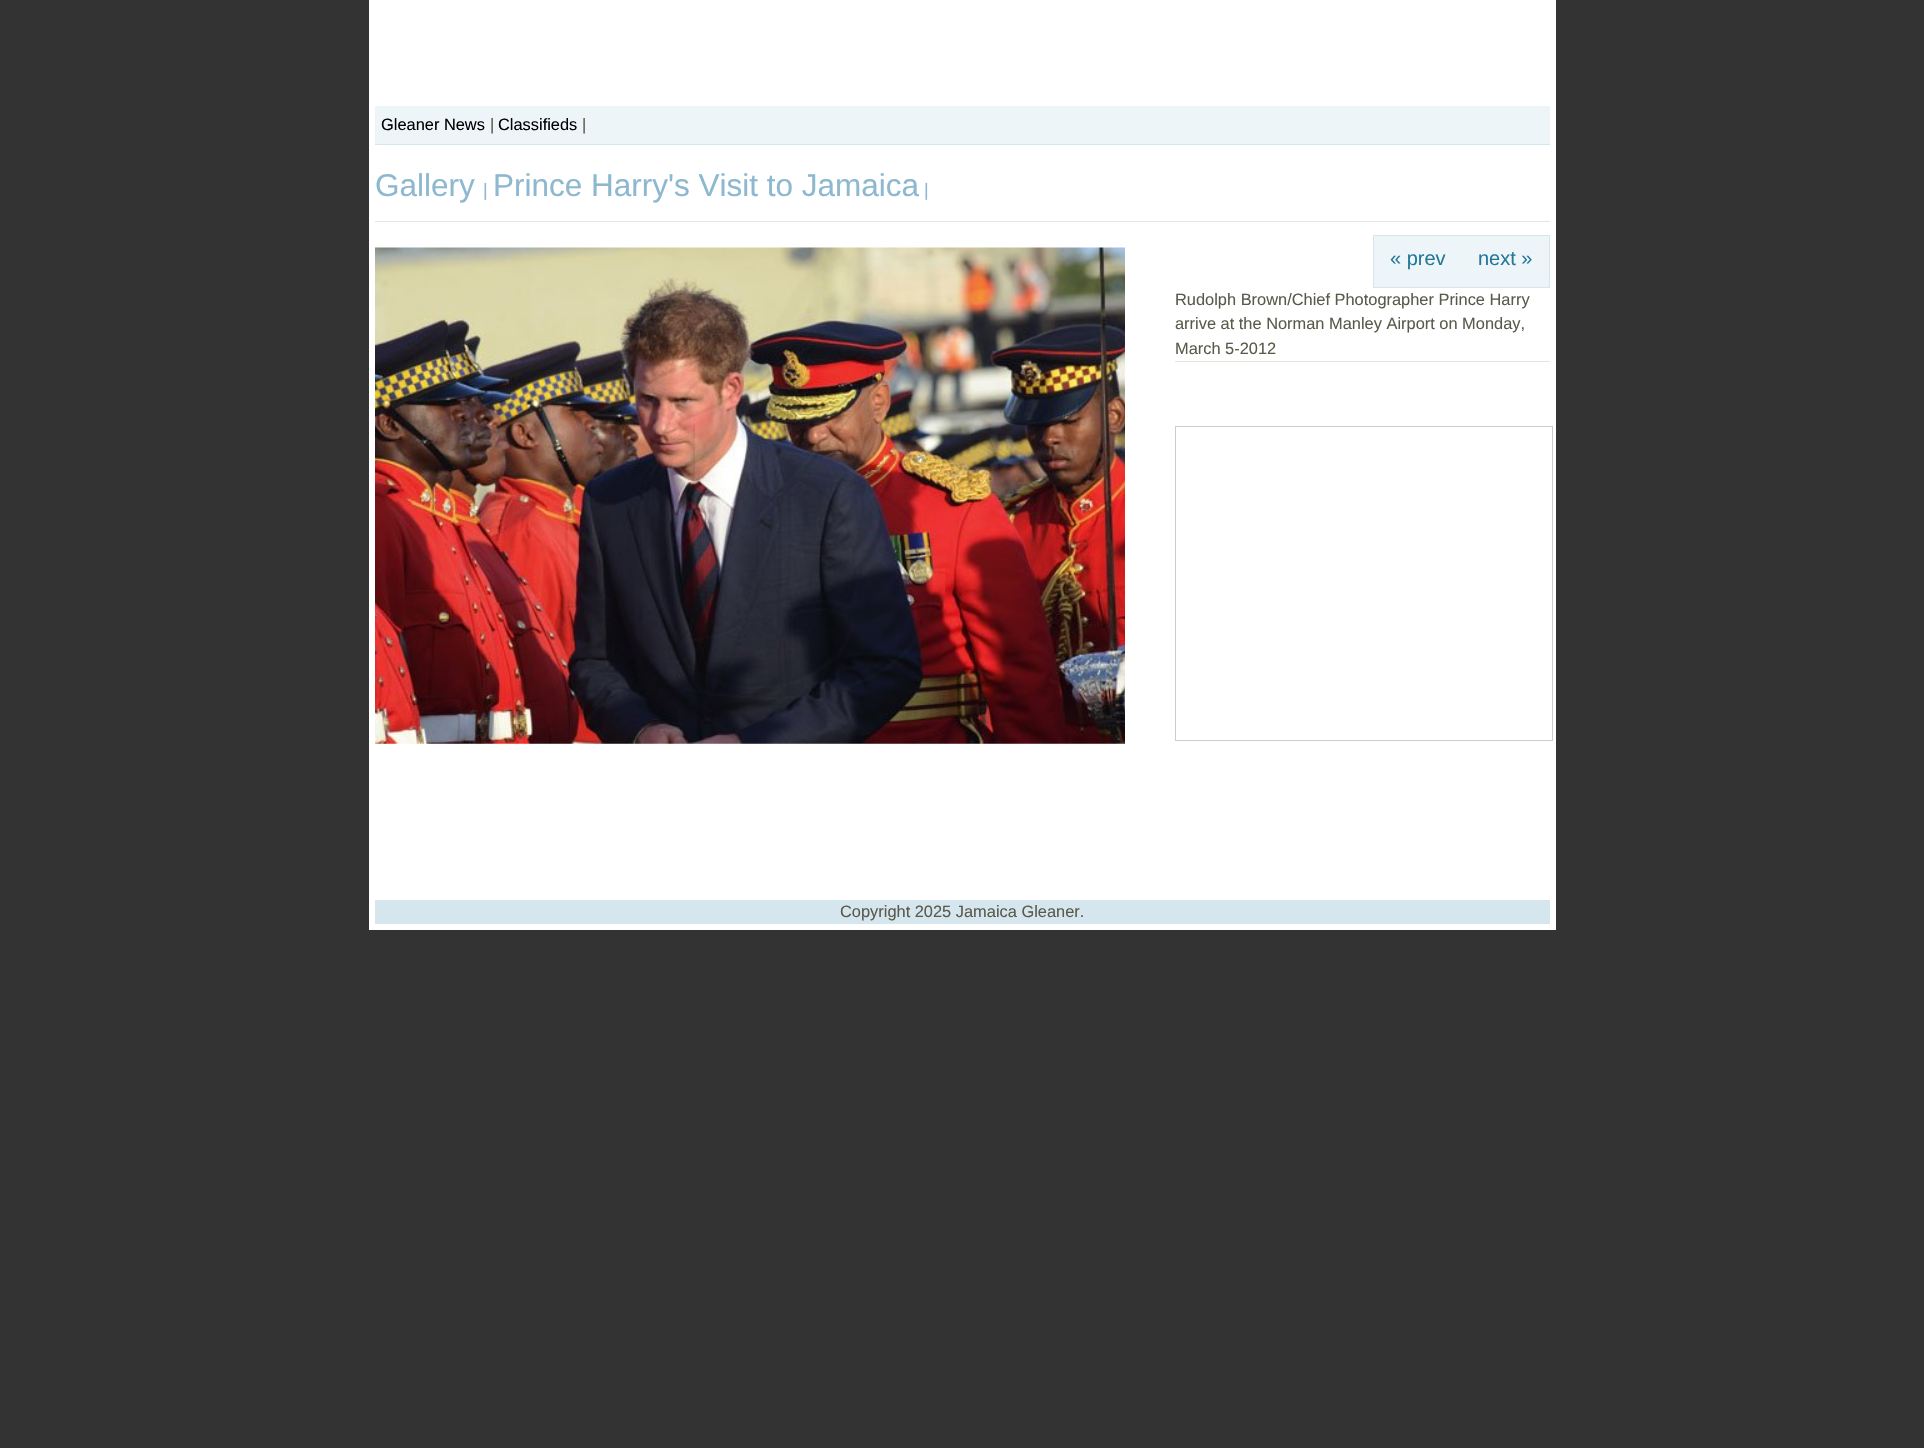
#include "include/core/SkBlurTypes.h"
#include "include/core/SkCanvas.h"
#include "include/core/SkData.h"
#include "include/core/SkFont.h"
#include "include/core/SkFontMgr.h"
#include "include/core/SkImage.h"
#include "include/core/SkMaskFilter.h"
#include "include/core/SkPaint.h"
#include "include/core/SkPathBuilder.h"
#include "include/core/SkTextBlob.h"
#include "include/effects/SkDashPathEffect.h"
#include "include/effects/SkGradientShader.h"
#include "include/utils/SkParsePath.h"

extern sk_sp<SkFontMgr> fontMgr;

void draw(SkCanvas* canvas) {
  SkPaint p;
  p.setAntiAlias(true);
  canvas->clear(SkColorSetRGB(51, 51, 51));
  p.setColor(SK_ColorWHITE);
  canvas->drawRect(SkRect::MakeLTRB(369, 0, 1556, 930), p);
  p.setColor(SkColorSetRGB(238, 245, 249));
  canvas->drawRect(SkRect::MakeLTRB(375, 106, 1550, 144), p);
  p.setColor(SkColorSetRGB(213, 230, 238));
  canvas->drawRect(SkRect::MakeLTRB(375, 144, 1550, 145), p);
  p.setColor(SkColorSetRGB(230, 230, 223));
  canvas->drawRect(SkRect::MakeLTRB(375, 221, 1550, 222), p);
  canvas->drawImageRect(SkImages::DeferredFromEncodedData(SkData::MakeFromFileName("images/1.png")), SkRect::MakeLTRB(375, 247, 1125, 744), SkSamplingOptions());
  p.setColor(SkColorSetRGB(238, 245, 249));
  canvas->drawRect(SkRect::MakeLTRB(1373.5f, 235.5f, 1549.5f, 287.5f), p);
  p.setStyle(SkPaint::kStroke_Style);
  p.setStrokeWidth(1);
  p.setColor(SkColorSetRGB(213, 230, 238));
  canvas->drawRect(SkRect::MakeLTRB(1373.5f, 235.5f, 1549.5f, 287.5f), p);
  p.setStyle(SkPaint::kFill_Style);
  p.setColor(SkColorSetRGB(230, 230, 223));
  canvas->drawRect(SkRect::MakeLTRB(1175, 361, 1550, 362), p);
  p.setStyle(SkPaint::kStroke_Style);
  p.setColor(SkColorSetRGB(204, 204, 204));
  canvas->drawRect(SkRect::MakeLTRB(1175.5f, 426.5f, 1552.5f, 740.5f), p);
  p.setStyle(SkPaint::kFill_Style);
  p.setColor(SkColorSetRGB(213, 230, 238));
  canvas->drawRect(SkRect::MakeLTRB(375, 900, 1550, 924), p);
  SkFont font1(fontMgr->matchFamilyStyle("Liberation Sans", SkFontStyle::Normal()), 16.4f);
  font1.setSubpixel(true);
  p.setColor(SK_ColorBLACK);
  canvas->drawString("Gleaner News", 381, 130, font1, p);
  p.setColor(SkColorSetRGB(90, 90, 75));
  canvas->drawString("|", 490, 130, font1, p);
  p.setColor(SK_ColorBLACK);
  canvas->drawString("Classifieds", 498, 130, font1, p);
  p.setColor(SkColorSetRGB(90, 90, 75));
  canvas->drawString("|", 582, 130, font1, p);
  SkFont font2(fontMgr->matchFamilyStyle("Liberation Sans", SkFontStyle::Normal()), 31.5f);
  font2.setSubpixel(true);
  p.setColor(SkColorSetRGB(141, 184, 207));
  canvas->drawString("Gallery", 375, 196, font2, p);
  SkFont font3(fontMgr->matchFamilyStyle("Liberation Sans", SkFontStyle::Normal()), 18);
  font3.setSubpixel(true);
  canvas->drawString("|", 483, 196, font3, p);
  canvas->drawString("Prince Harry's Visit to Jamaica", 493, 196, font2, p);
  canvas->drawString("|", 924, 196, font3, p);
  SkFont font4(fontMgr->matchFamilyStyle("Liberation Sans", SkFontStyle::Normal()), 20);
  font4.setSubpixel(true);
  p.setColor(SkColorSetRGB(35, 120, 152));
  canvas->drawString("« prev", 1390, 265, font4, p);
  canvas->drawString("next »", 1478, 265, font4, p);
  p.setColor(SkColorSetRGB(90, 90, 75));
  canvas->drawString("Rudolph Brown/Chief Photographer Prince Harry", 1175, 305, font1, p);
  canvas->drawString("arrive at the Norman Manley Airport on Monday,", 1175, 329, font1, p);
  canvas->drawString("March 5-2012", 1175, 354, font1, p);
  canvas->drawString("Copyright 2025 Jamaica Gleaner.", 840, 917, font1, p);
}
